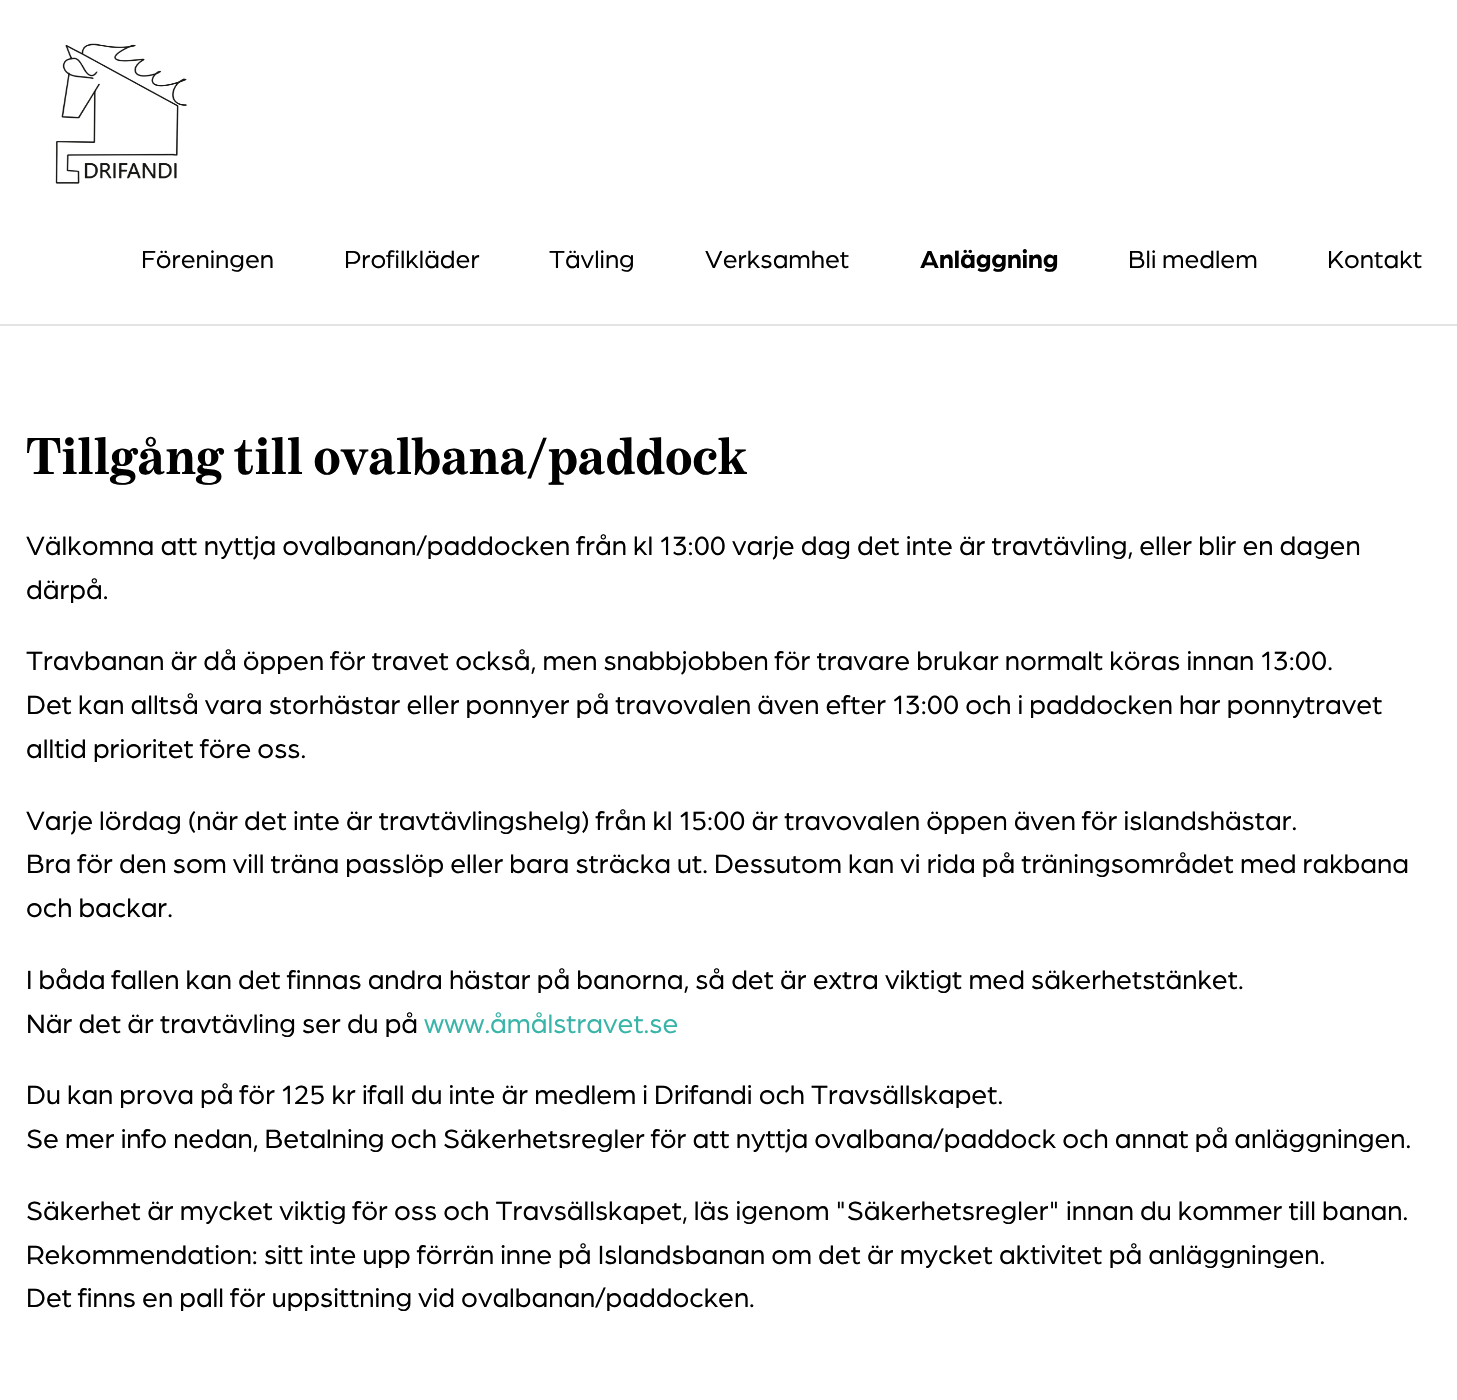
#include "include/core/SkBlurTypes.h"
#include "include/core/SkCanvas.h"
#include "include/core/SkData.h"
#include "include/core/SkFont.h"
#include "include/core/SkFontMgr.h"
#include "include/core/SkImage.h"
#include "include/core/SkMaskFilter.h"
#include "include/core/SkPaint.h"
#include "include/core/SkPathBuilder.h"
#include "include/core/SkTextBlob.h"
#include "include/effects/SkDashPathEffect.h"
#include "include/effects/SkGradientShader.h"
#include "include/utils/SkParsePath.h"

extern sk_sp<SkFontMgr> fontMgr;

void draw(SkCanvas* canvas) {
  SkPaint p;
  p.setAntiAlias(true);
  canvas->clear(SK_ColorWHITE);
  p.setColor(SkColorSetRGB(227, 227, 227));
  canvas->drawRect(SkRect::MakeLTRB(0, 324, 1457, 326), p);
  canvas->drawImageRect(SkImages::DeferredFromEncodedData(SkData::MakeFromFileName("images/1.png")), SkRect::MakeLTRB(55, 43, 187, 184), SkSamplingOptions());
  SkFont font1(fontMgr->matchFamilyStyle("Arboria", SkFontStyle::Normal()), 26.25f);
  font1.setSubpixel(true);
  p.setColor(SK_ColorBLACK);
  canvas->drawString("Föreningen", 141, 268, font1, p);
  canvas->drawString("Profilkläder", 344, 268, font1, p);
  canvas->drawString("Tävling", 549, 268, font1, p);
  canvas->drawString("Verksamhet", 705, 268, font1, p);
  SkFont font2(fontMgr->matchFamilyStyle("Arboria", SkFontStyle::Bold()), 26.25f);
  font2.setSubpixel(true);
  canvas->drawString("Anläggning", 920, 268, font2, p);
  canvas->drawString("Bli medlem", 1128, 268, font1, p);
  canvas->drawString("Kontakt", 1327, 268, font1, p);
  SkFont font3(fontMgr->matchFamilyStyle("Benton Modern", SkFontStyle::Bold()), 52.5f);
  font3.setSubpixel(true);
  canvas->drawString("Tillgång till ovalbana/paddock", 26, 474, font3, p);
  SkFont font4(fontMgr->matchFamilyStyle("Arboria", SkFontStyle::Normal()), 28);
  font4.setSubpixel(true);
  canvas->drawString("Välkomna att nyttja ovalbanan/paddocken från kl 13:00 varje dag det inte är travtävling, eller blir en dagen", 26, 555, font4, p);
  canvas->drawString("därpå.", 26, 599, font4, p);
  canvas->drawString("Travbanan är då öppen för travet också, men snabbjobben för travare brukar normalt köras innan 13:00.", 26, 670, font4, p);
  canvas->drawString("Det kan alltså vara storhästar eller ponnyer på travovalen även efter 13:00 och i paddocken har ponnytravet", 26, 714, font4, p);
  canvas->drawString("alltid prioritet före oss.", 26, 758, font4, p);
  canvas->drawString("Varje lördag (när det inte är travtävlingshelg) från kl 15:00 är travovalen öppen även för islandshästar.", 26, 830, font4, p);
  canvas->drawString("Bra för den som vill träna passlöp eller bara sträcka ut. Dessutom kan vi rida på träningsområdet med rakbana", 26, 873, font4, p);
  canvas->drawString("och backar.", 26, 917, font4, p);
  canvas->drawString("I båda fallen kan det finnas andra hästar på banorna, så det är extra viktigt med säkerhetstänket.", 26, 989, font4, p);
  canvas->drawString("När det är travtävling ser du på", 26, 1033, font4, p);
  p.setColor(SkColorSetRGB(56, 180, 169));
  canvas->drawString("www.åmålstravet.se", 424, 1033, font4, p);
  p.setColor(SK_ColorBLACK);
  canvas->drawString("Du kan prova på för 125 kr ifall du inte är medlem i Drifandi och Travsällskapet.", 26, 1104, font4, p);
  canvas->drawString("Se mer info nedan, Betalning och Säkerhetsregler för att nyttja ovalbana/paddock och annat på anläggningen.", 26, 1148, font4, p);
  canvas->drawString("Säkerhet är mycket viktig för oss och Travsällskapet, läs igenom \"Säkerhetsregler\" innan du kommer till banan.", 26, 1220, font4, p);
  canvas->drawString("Rekommendation: sitt inte upp förrän inne på Islandsbanan om det är mycket aktivitet på anläggningen.", 26, 1264, font4, p);
  canvas->drawString("Det finns en pall för uppsittning vid ovalbanan/paddocken.", 26, 1307, font4, p);
}
